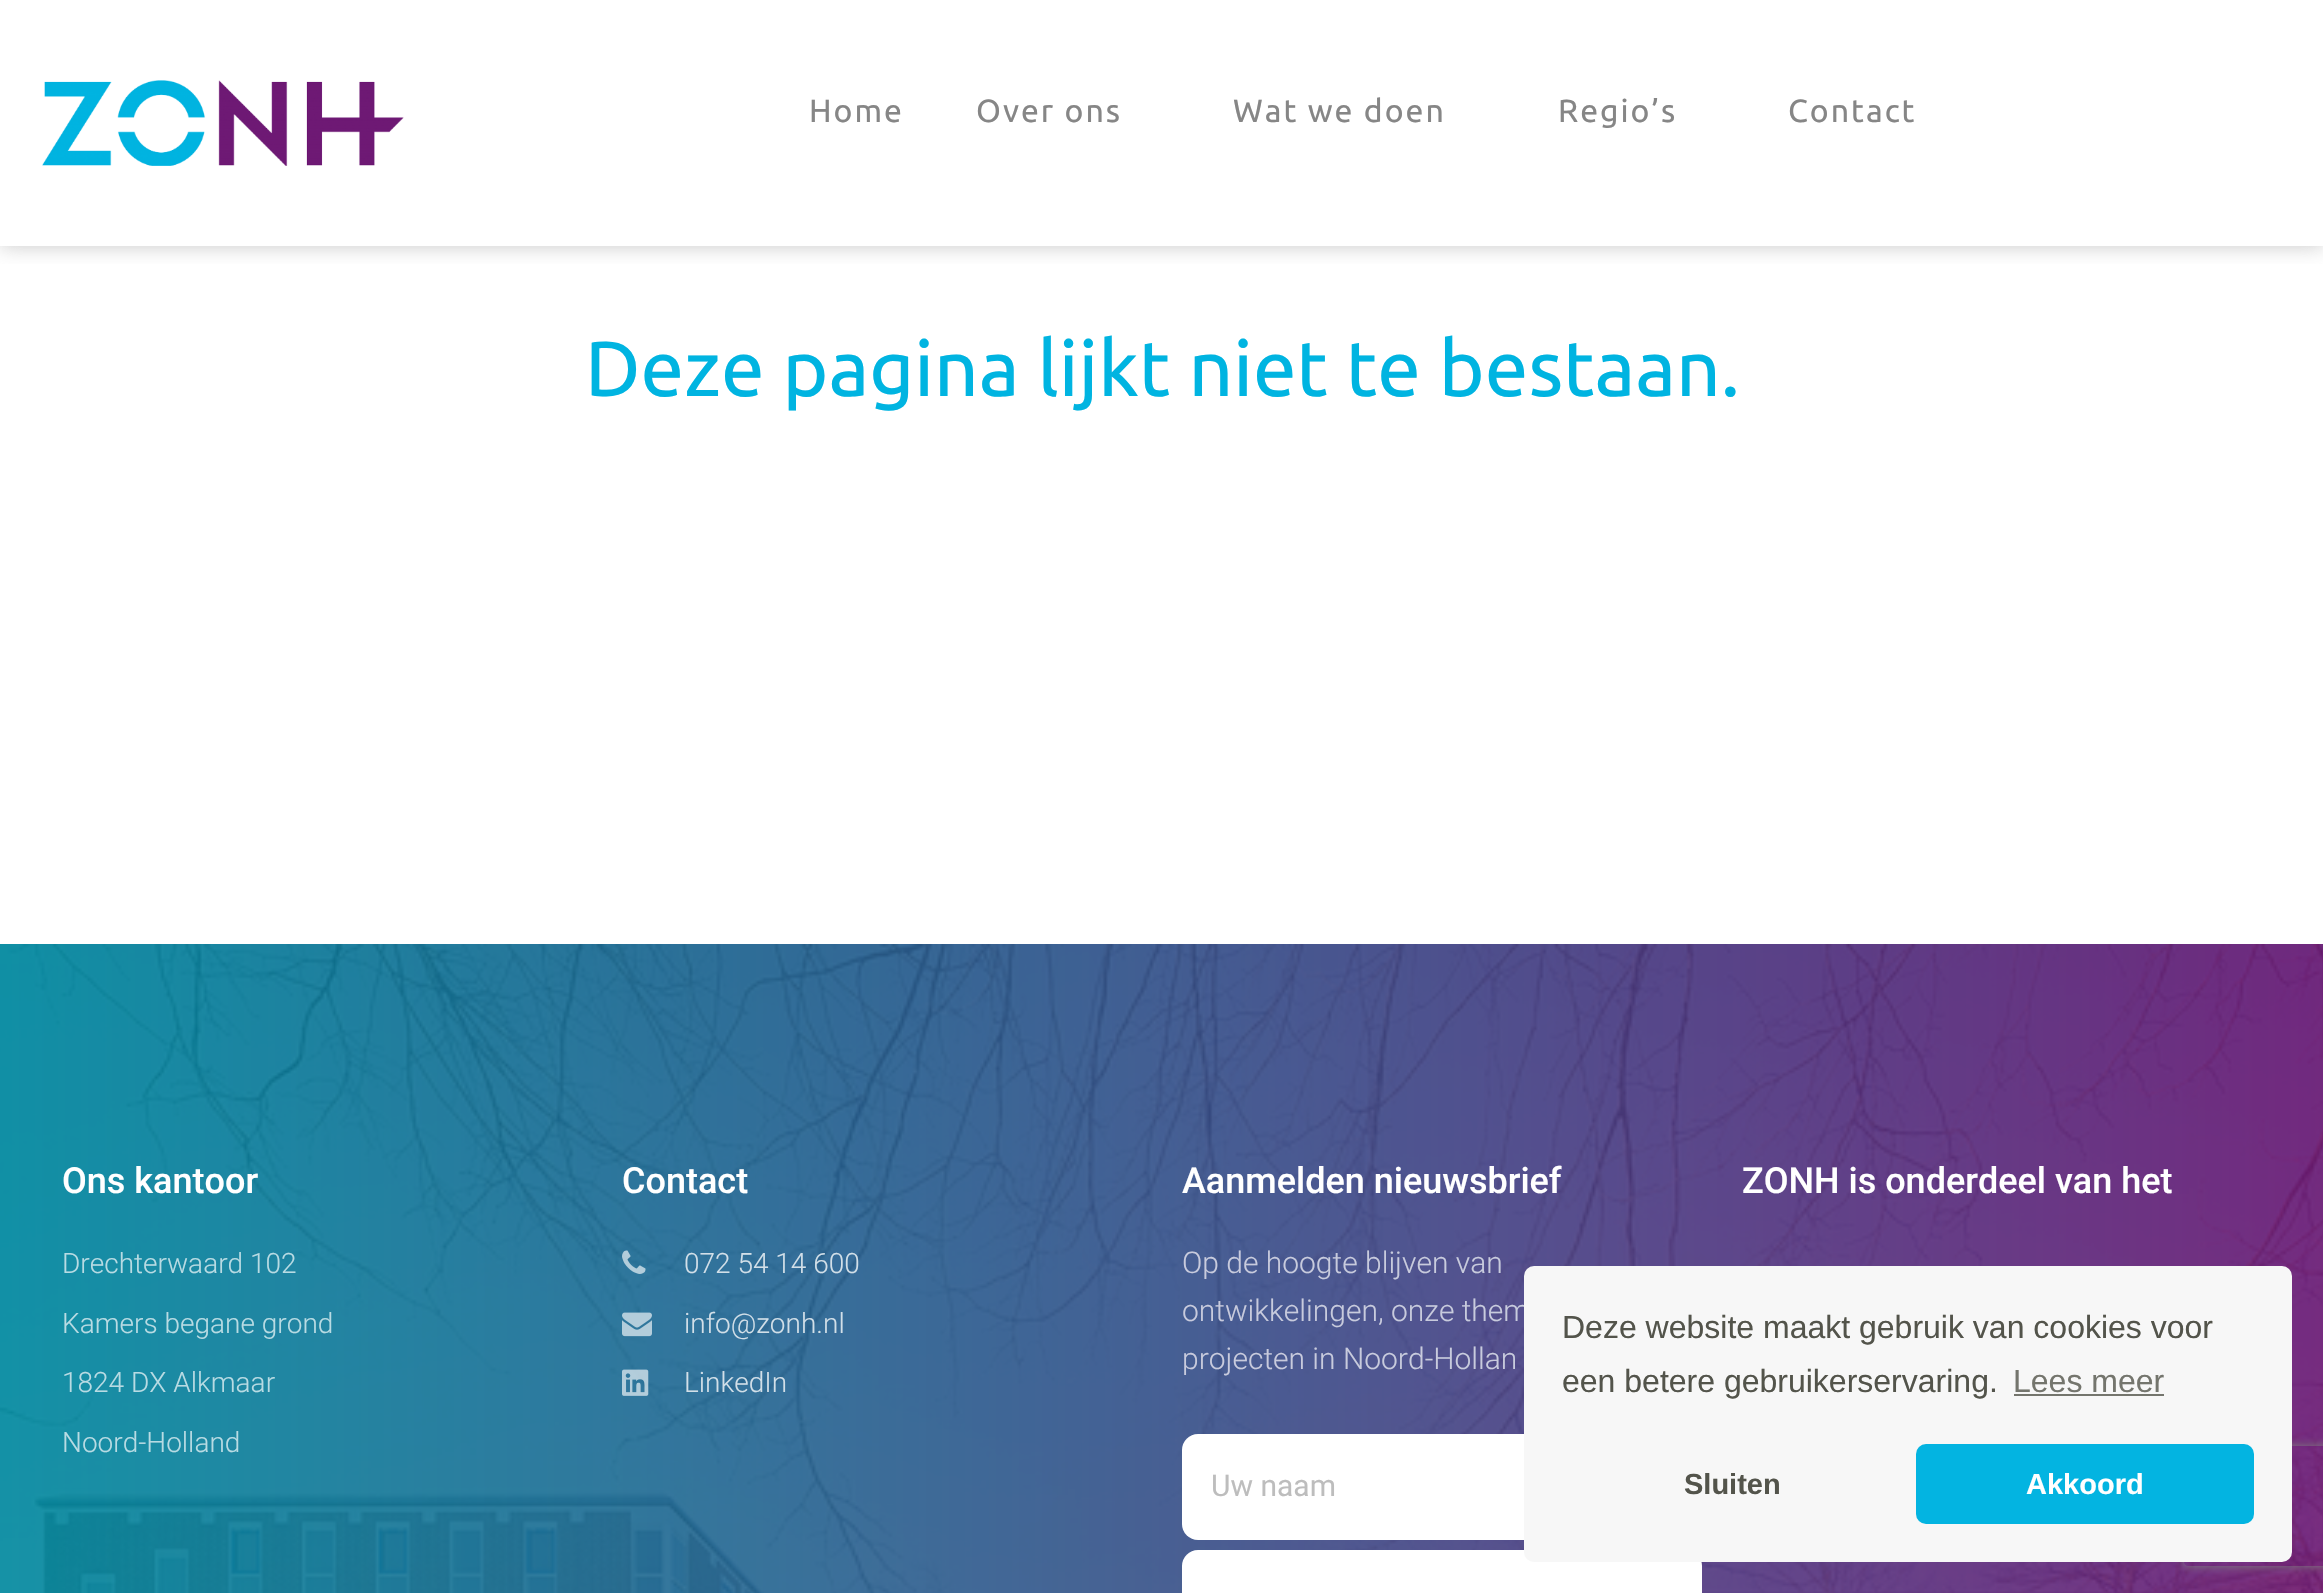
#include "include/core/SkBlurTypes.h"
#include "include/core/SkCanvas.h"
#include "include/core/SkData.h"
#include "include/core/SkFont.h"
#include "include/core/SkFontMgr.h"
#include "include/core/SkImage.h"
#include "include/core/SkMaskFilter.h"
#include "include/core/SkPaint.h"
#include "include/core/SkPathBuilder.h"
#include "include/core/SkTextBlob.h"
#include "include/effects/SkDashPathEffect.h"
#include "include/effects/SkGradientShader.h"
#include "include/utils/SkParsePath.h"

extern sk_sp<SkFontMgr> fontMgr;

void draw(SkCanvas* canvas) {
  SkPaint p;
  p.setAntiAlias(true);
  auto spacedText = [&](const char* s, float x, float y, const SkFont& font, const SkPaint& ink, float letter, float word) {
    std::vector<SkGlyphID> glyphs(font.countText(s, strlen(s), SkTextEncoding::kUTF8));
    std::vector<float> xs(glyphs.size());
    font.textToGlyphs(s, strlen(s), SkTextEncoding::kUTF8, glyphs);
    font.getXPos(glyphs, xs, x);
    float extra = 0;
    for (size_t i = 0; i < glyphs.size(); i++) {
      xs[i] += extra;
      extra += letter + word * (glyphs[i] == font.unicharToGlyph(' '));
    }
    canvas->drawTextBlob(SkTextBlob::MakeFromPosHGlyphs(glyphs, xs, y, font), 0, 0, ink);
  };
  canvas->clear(SK_ColorWHITE);
  canvas->save();
  canvas->clipRect(SkRect::MakeLTRB(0, 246, 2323, 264));
  p.setColor(SkColorSetARGB(158, 167, 167, 167));
  p.setMaskFilter(SkMaskFilter::MakeBlur(kNormal_SkBlurStyle, 10));
  canvas->drawRect(SkRect::MakeLTRB(0, 0, 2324, 246), p);
  p.setMaskFilter(nullptr);
  canvas->restore();
  canvas->drawImageRect(SkImages::DeferredFromEncodedData(SkData::MakeFromFileName("images/1.png")), SkRect::MakeLTRB(42, 80, 404, 166), SkSamplingOptions());
  canvas->drawImageRect(SkImages::DeferredFromEncodedData(SkData::MakeFromFileName("images/2.png")), SkRect::MakeLTRB(0, 944, 2323, 1593), SkSamplingOptions());
  canvas->drawImageRect(SkImages::DeferredFromEncodedData(SkData::MakeFromFileName("images/3.png")), SkRect::MakeLTRB(622, 1250, 646, 1274), SkSamplingOptions());
  canvas->drawImageRect(SkImages::DeferredFromEncodedData(SkData::MakeFromFileName("images/4.png")), SkRect::MakeLTRB(622, 1312, 652, 1337), SkSamplingOptions());
  canvas->drawImageRect(SkImages::DeferredFromEncodedData(SkData::MakeFromFileName("images/5.png")), SkRect::MakeLTRB(622, 1369, 649, 1396), SkSamplingOptions());
  p.setColor(SK_ColorWHITE);
  canvas->drawRoundRect(SkRect::MakeLTRB(1182, 1434, 1702, 1540), 16, 16, p);
  canvas->drawRoundRect(SkRect::MakeLTRB(1182, 1550, 1702, 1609), 16, 16, p);
  canvas->save();
  canvas->clipPath(SkPathBuilder(SkPathFillType::kEvenOdd).moveTo(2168, 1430).lineTo(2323, 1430).lineTo(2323, 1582).lineTo(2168, 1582).close().moveTo(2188, 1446).lineTo(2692, 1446).cubicTo(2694, 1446, 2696, 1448, 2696, 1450).lineTo(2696, 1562).cubicTo(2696, 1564, 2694, 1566, 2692, 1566).lineTo(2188, 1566).cubicTo(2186, 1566, 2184, 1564, 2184, 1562).lineTo(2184, 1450).cubicTo(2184, 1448, 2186, 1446, 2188, 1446).close().detach(), true);
  p.setColor(SkColorSetRGB(128, 128, 128));
  p.setMaskFilter(SkMaskFilter::MakeBlur(kNormal_SkBlurStyle, 5));
  canvas->drawRoundRect(SkRect::MakeLTRB(2184, 1446, 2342, 1566), 4, 4, p);
  p.setMaskFilter(nullptr);
  canvas->restore();
  SkFont font1(fontMgr->matchFamilyStyle("Ubuntu", SkFontStyle::Normal()), 32);
  font1.setSubpixel(true);
  p.setColor(SkColorSetRGB(134, 134, 134));
  spacedText("Home", 809, 122, font1, p, 2, 0);
  spacedText("Over ons", 976, 122, font1, p, 2, 0);
  spacedText("Wat we doen", 1233, 122, font1, p, 2, 0);
  spacedText("Regio’s", 1558, 122, font1, p, 2, 0);
  spacedText("Contact", 1788, 122, font1, p, 2, 0);
  SkFont font2(fontMgr->matchFamilyStyle("Ubuntu", SkFontStyle::Normal()), 78);
  font2.setSubpixel(true);
  p.setColor(SkColorSetRGB(0, 180, 225));
  canvas->drawString("Deze pagina lijkt niet te bestaan.", 585, 396, font2, p);
  SkFont font3(fontMgr->matchFamilyStyle("Roboto", SkFontStyle(500, SkFontStyle::kNormal_Width, SkFontStyle::kUpright_Slant)), 36);
  font3.setSubpixel(true);
  p.setColor(SK_ColorWHITE);
  canvas->drawString("Ons kantoor", 62, 1193, font3, p);
  SkFont font4(fontMgr->matchFamilyStyle("Roboto", SkFontStyle(300, SkFontStyle::kNormal_Width, SkFontStyle::kUpright_Slant)), 28);
  font4.setSubpixel(true);
  p.setColor(SkColorSetRGB(184, 219, 227));
  canvas->drawString("Drechterwaard 102", 62, 1273, font4, p);
  canvas->drawString("Kamers begane grond", 62, 1333, font4, p);
  canvas->drawString("1824 DX Alkmaar", 62, 1392, font4, p);
  canvas->drawString("Noord-Holland", 62, 1452, font4, p);
  p.setColor(SK_ColorWHITE);
  canvas->drawString("Contact", 622, 1193, font3, p);
  p.setColor(SkColorSetRGB(210, 223, 232));
  canvas->drawString("072 54 14 600", 684, 1273, font4, p);
  canvas->drawString("info@zonh.nl", 684, 1333, font4, p);
  canvas->drawString("LinkedIn", 684, 1392, font4, p);
  p.setColor(SK_ColorWHITE);
  canvas->drawString("Aanmelden nieuwsbrief", 1182, 1193, font3, p);
  SkFont font5(fontMgr->matchFamilyStyle("Roboto", SkFontStyle(300, SkFontStyle::kNormal_Width, SkFontStyle::kUpright_Slant)), 30);
  font5.setSubpixel(true);
  p.setColor(SkColorSetRGB(200, 203, 221));
  canvas->drawString("Op de hoogte blijven van", 1182, 1273, font5, p);
  canvas->drawString("ontwikkelingen, onze them", 1182, 1321, font5, p);
  canvas->drawString("projecten in Noord-Hollan", 1182, 1369, font5, p);
  SkFont font6(fontMgr->matchFamilyStyle("Roboto", SkFontStyle::Normal()), 30);
  font6.setSubpixel(true);
  p.setColor(SkColorSetRGB(189, 189, 189));
  canvas->drawString("Uw naam", 1211, 1496, font6, p);
  p.setColor(SK_ColorWHITE);
  canvas->drawString("ZONH is onderdeel van het", 1742, 1193, font3, p);
  p.setColor(SkColorSetRGB(247, 247, 247));
  canvas->drawRoundRect(SkRect::MakeLTRB(1524, 1266, 2292, 1562), 10, 10, p);
  SkFont font7(fontMgr->matchFamilyStyle("Liberation Sans", SkFontStyle::Normal()), 32);
  font7.setSubpixel(true);
  p.setColor(SkColorSetRGB(83, 84, 75));
  canvas->drawString("Deze website maakt gebruik van cookies voor", 1562, 1338, font7, p);
  canvas->drawString("een betere gebruikerservaring.", 1562, 1392, font7, p);
  p.setColor(SkColorSetRGB(116, 117, 109));
  canvas->drawString("Lees meer", 2013, 1392, font7, p);
  canvas->drawRect(SkRect::MakeLTRB(2014, 1394, 2164, 1396), p);
  SkFont font8(fontMgr->matchFamilyStyle("Liberation Sans", SkFontStyle::Bold()), 29);
  font8.setSubpixel(true);
  p.setColor(SkColorSetRGB(83, 84, 75));
  canvas->drawString("Sluiten", 1684, 1494, font8, p);
  p.setColor(SkColorSetRGB(3, 180, 225));
  canvas->drawRoundRect(SkRect::MakeLTRB(1916, 1444, 2254, 1524), 10, 10, p);
  p.setColor(SK_ColorWHITE);
  canvas->drawString("Akkoord", 2026, 1494, font8, p);
}
